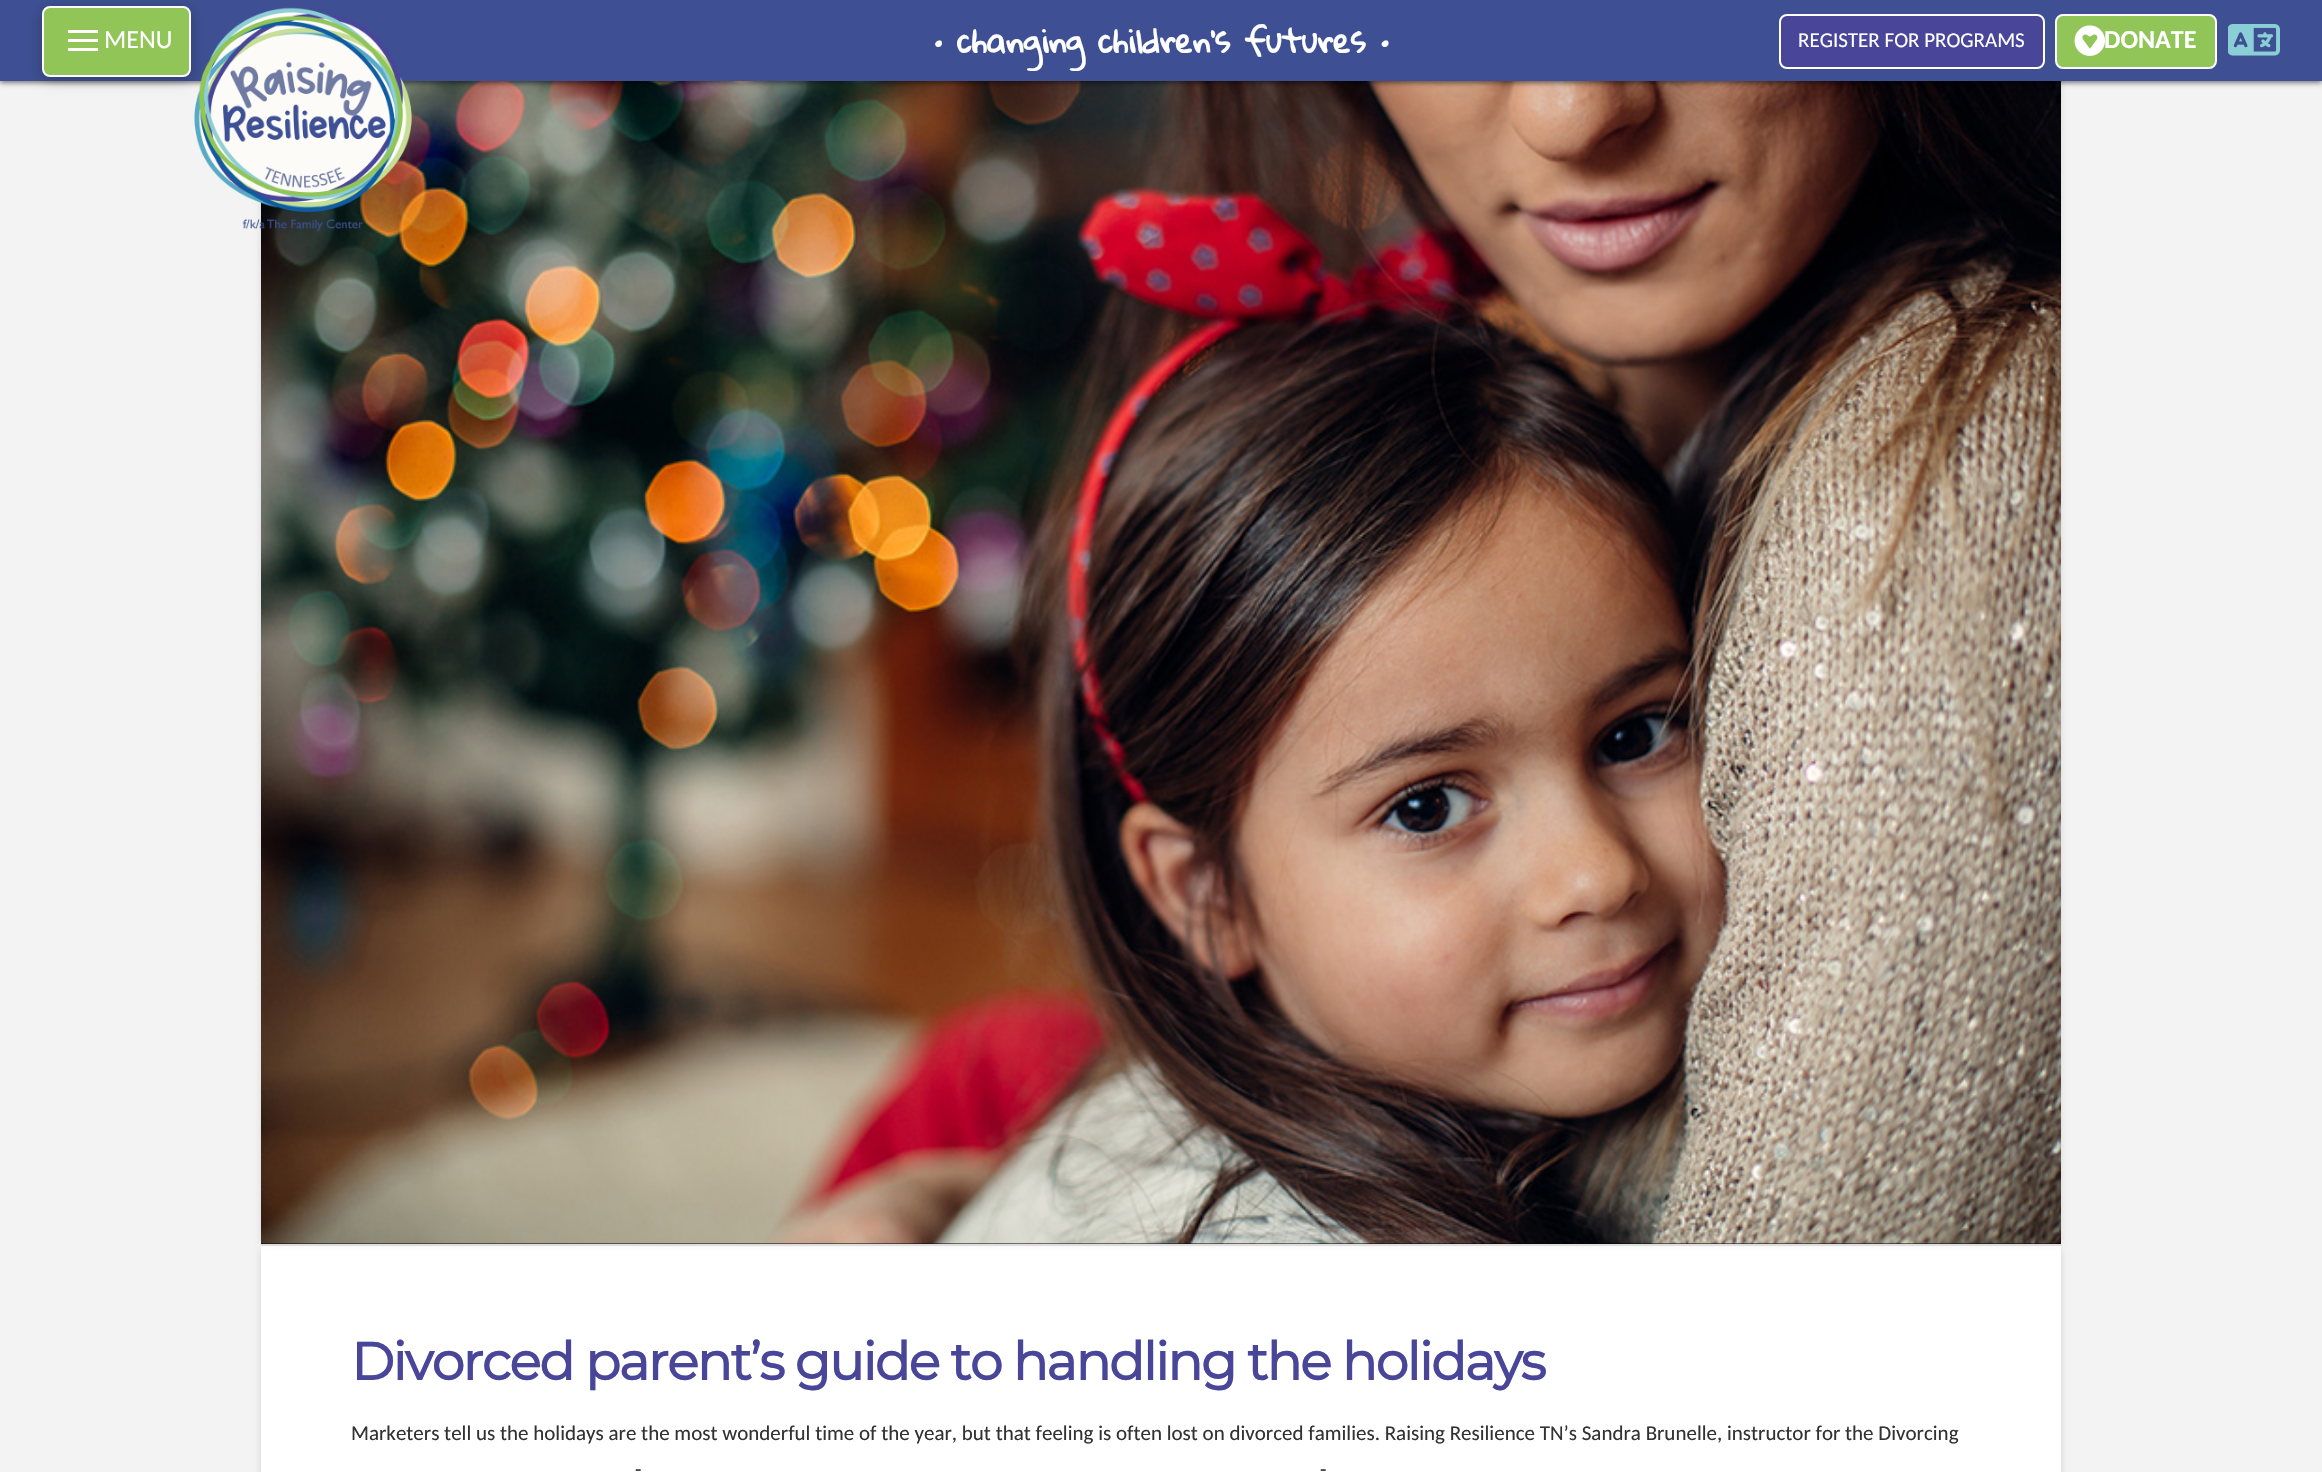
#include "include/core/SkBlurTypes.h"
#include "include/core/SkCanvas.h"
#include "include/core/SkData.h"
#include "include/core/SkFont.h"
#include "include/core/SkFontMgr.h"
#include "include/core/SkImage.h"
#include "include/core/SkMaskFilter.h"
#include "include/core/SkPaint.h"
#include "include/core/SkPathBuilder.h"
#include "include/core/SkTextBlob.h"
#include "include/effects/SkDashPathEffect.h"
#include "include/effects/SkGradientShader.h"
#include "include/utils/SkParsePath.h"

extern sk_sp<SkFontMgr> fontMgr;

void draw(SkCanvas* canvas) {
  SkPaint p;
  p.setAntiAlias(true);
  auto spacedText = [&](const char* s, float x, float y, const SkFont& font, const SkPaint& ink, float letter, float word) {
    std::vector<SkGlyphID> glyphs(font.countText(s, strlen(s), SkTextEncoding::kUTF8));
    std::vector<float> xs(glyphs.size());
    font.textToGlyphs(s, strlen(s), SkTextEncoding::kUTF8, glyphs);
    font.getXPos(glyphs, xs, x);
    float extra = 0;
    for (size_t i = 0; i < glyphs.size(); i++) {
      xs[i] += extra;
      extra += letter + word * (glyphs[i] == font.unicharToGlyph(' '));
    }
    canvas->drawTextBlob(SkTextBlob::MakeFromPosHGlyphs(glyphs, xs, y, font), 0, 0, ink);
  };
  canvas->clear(SkColorSetRGB(243, 243, 243));
  p.setColor(SkColorSetARGB(33, 0, 0, 0));
  p.setMaskFilter(SkMaskFilter::MakeBlur(kNormal_SkBlurStyle, 3.5f));
  canvas->drawRoundRect(SkRect::MakeLTRB(261, 1248, 2061, 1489), 6, 6, p);
  p.setMaskFilter(nullptr);
  p.setColor(SK_ColorWHITE);
  canvas->drawRect(SkRect::MakeLTRB(261, 1246, 2061, 1472), p);
  p.setColor(SkColorSetARGB(33, 0, 0, 0));
  p.setMaskFilter(SkMaskFilter::MakeBlur(kNormal_SkBlurStyle, 3));
  canvas->drawRect(SkRect::MakeLTRB(261, 69, 2049, 1242), p);
  p.setMaskFilter(nullptr);
  p.setMaskFilter(SkMaskFilter::MakeBlur(kNormal_SkBlurStyle, 3));
  canvas->drawRect(SkRect::MakeLTRB(273, 69, 2061, 1242), p);
  p.setMaskFilter(nullptr);
  p.setColor(SK_ColorBLACK);
  canvas->drawRect(SkRect::MakeLTRB(261, 1243, 2061, 1244), p);
  canvas->drawImageRect(SkImages::DeferredFromEncodedData(SkData::MakeFromFileName("images/4.png")), SkRect::MakeLTRB(261, 81, 2061, 1244), SkSamplingOptions());
  p.setColor(SkColorSetARGB(128, 0, 0, 0));
  p.setMaskFilter(SkMaskFilter::MakeBlur(kNormal_SkBlurStyle, 2.5f));
  canvas->drawRect(SkRect::MakeLTRB(0, 2, 2322, 83), p);
  p.setMaskFilter(nullptr);
  p.setColor(SkColorSetRGB(62, 80, 147));
  canvas->drawRect(SkRect::MakeLTRB(0, 0, 2322, 81), p);
  p.setColor(SkColorSetARGB(64, 0, 0, 0));
  p.setMaskFilter(SkMaskFilter::MakeBlur(kNormal_SkBlurStyle, 7));
  canvas->drawRoundRect(SkRect::MakeLTRB(42, 9, 191, 80), 8, 8, p);
  p.setMaskFilter(nullptr);
  p.setColor(SkColorSetRGB(145, 197, 88));
  canvas->drawRoundRect(SkRect::MakeLTRB(43, 7, 190, 76), 7, 7, p);
  p.setStyle(SkPaint::kStroke_Style);
  p.setStrokeWidth(2);
  p.setColor(SK_ColorWHITE);
  canvas->drawRoundRect(SkRect::MakeLTRB(43, 7, 190, 76), 7, 7, p);
  p.setStyle(SkPaint::kFill_Style);
  canvas->drawRect(SkRect::MakeLTRB(68, 30, 98, 33), p);
  canvas->drawRect(SkRect::MakeLTRB(68, 39, 98, 42), p);
  canvas->drawRect(SkRect::MakeLTRB(68, 48, 98, 51), p);
  canvas->drawImageRect(SkImages::DeferredFromEncodedData(SkData::MakeFromFileName("images/1.png")), SkRect::MakeLTRB(194, 7, 412, 232), SkSamplingOptions());
  p.setColor(SkColorSetRGB(73, 70, 154));
  canvas->drawRoundRect(SkRect::MakeLTRB(1780, 15, 2044, 68), 7, 7, p);
  p.setStyle(SkPaint::kStroke_Style);
  p.setColor(SK_ColorWHITE);
  canvas->drawRoundRect(SkRect::MakeLTRB(1780, 15, 2044, 68), 7, 7, p);
  p.setStyle(SkPaint::kFill_Style);
  p.setColor(SkColorSetRGB(145, 197, 88));
  canvas->drawRoundRect(SkRect::MakeLTRB(2056, 15, 2216, 68), 7, 7, p);
  p.setStyle(SkPaint::kStroke_Style);
  p.setColor(SK_ColorWHITE);
  canvas->drawRoundRect(SkRect::MakeLTRB(2056, 15, 2216, 68), 7, 7, p);
  canvas->drawImageRect(SkImages::DeferredFromEncodedData(SkData::MakeFromFileName("images/2.png")), SkRect::MakeLTRB(2074, 25, 2105, 56), SkSamplingOptions());
  canvas->drawImageRect(SkImages::DeferredFromEncodedData(SkData::MakeFromFileName("images/3.png")), SkRect::MakeLTRB(2228, 24, 2280, 56), SkSamplingOptions());
  p.setStyle(SkPaint::kFill_Style);
  p.setColor(SkColorSetRGB(221, 221, 221));
  canvas->drawRect(SkRect::MakeLTRB(261, 1244, 2061, 1246), p);
  SkFont font1(fontMgr->matchFamilyStyle("Carlito", SkFontStyle::Normal()), 26);
  font1.setSubpixel(true);
  p.setColor(SK_ColorWHITE);
  canvas->drawString("MENU", 104, 48, font1, p);
  SkFont font2(fontMgr->matchFamilyStyle("Gloria Hallelujah", SkFontStyle::Bold()), 31.5f);
  font2.setSubpixel(true);
  canvas->drawString("• changing children's futures •", 933, 53, font2, p);
  SkFont font3(fontMgr->matchFamilyStyle("Carlito", SkFontStyle::Normal()), 21);
  font3.setSubpixel(true);
  canvas->drawString("REGISTER FOR PROGRAMS", 1798, 47, font3, p);
  SkFont font4(fontMgr->matchFamilyStyle("Carlito", SkFontStyle::Bold()), 26);
  font4.setSubpixel(true);
  canvas->drawString("DONATE", 2104, 48, font4, p);
  SkFont font5(fontMgr->matchFamilyStyle("Montserrat", SkFontStyle::Bold()), 52.5f);
  font5.setSubpixel(true);
  p.setColor(SkColorSetRGB(73, 70, 154));
  spacedText("Divorced parent’s guide to handling the holidays", 351, 1380, font5, p, -1.85f, 0);
  p.setColor(SkColorSetRGB(50, 50, 50));
  canvas->drawString("Marketers tell us the holidays are the most wonderful time of the year, but that feeling is often lost on divorced families. Raising Resilience TN’s Sandra Brunelle, instructor for the Divorcing", 351, 1440, font3, p);
  canvas->drawString("-", 635, 1476, font3, p);
  canvas->drawString("-", 1320, 1476, font3, p);
}
